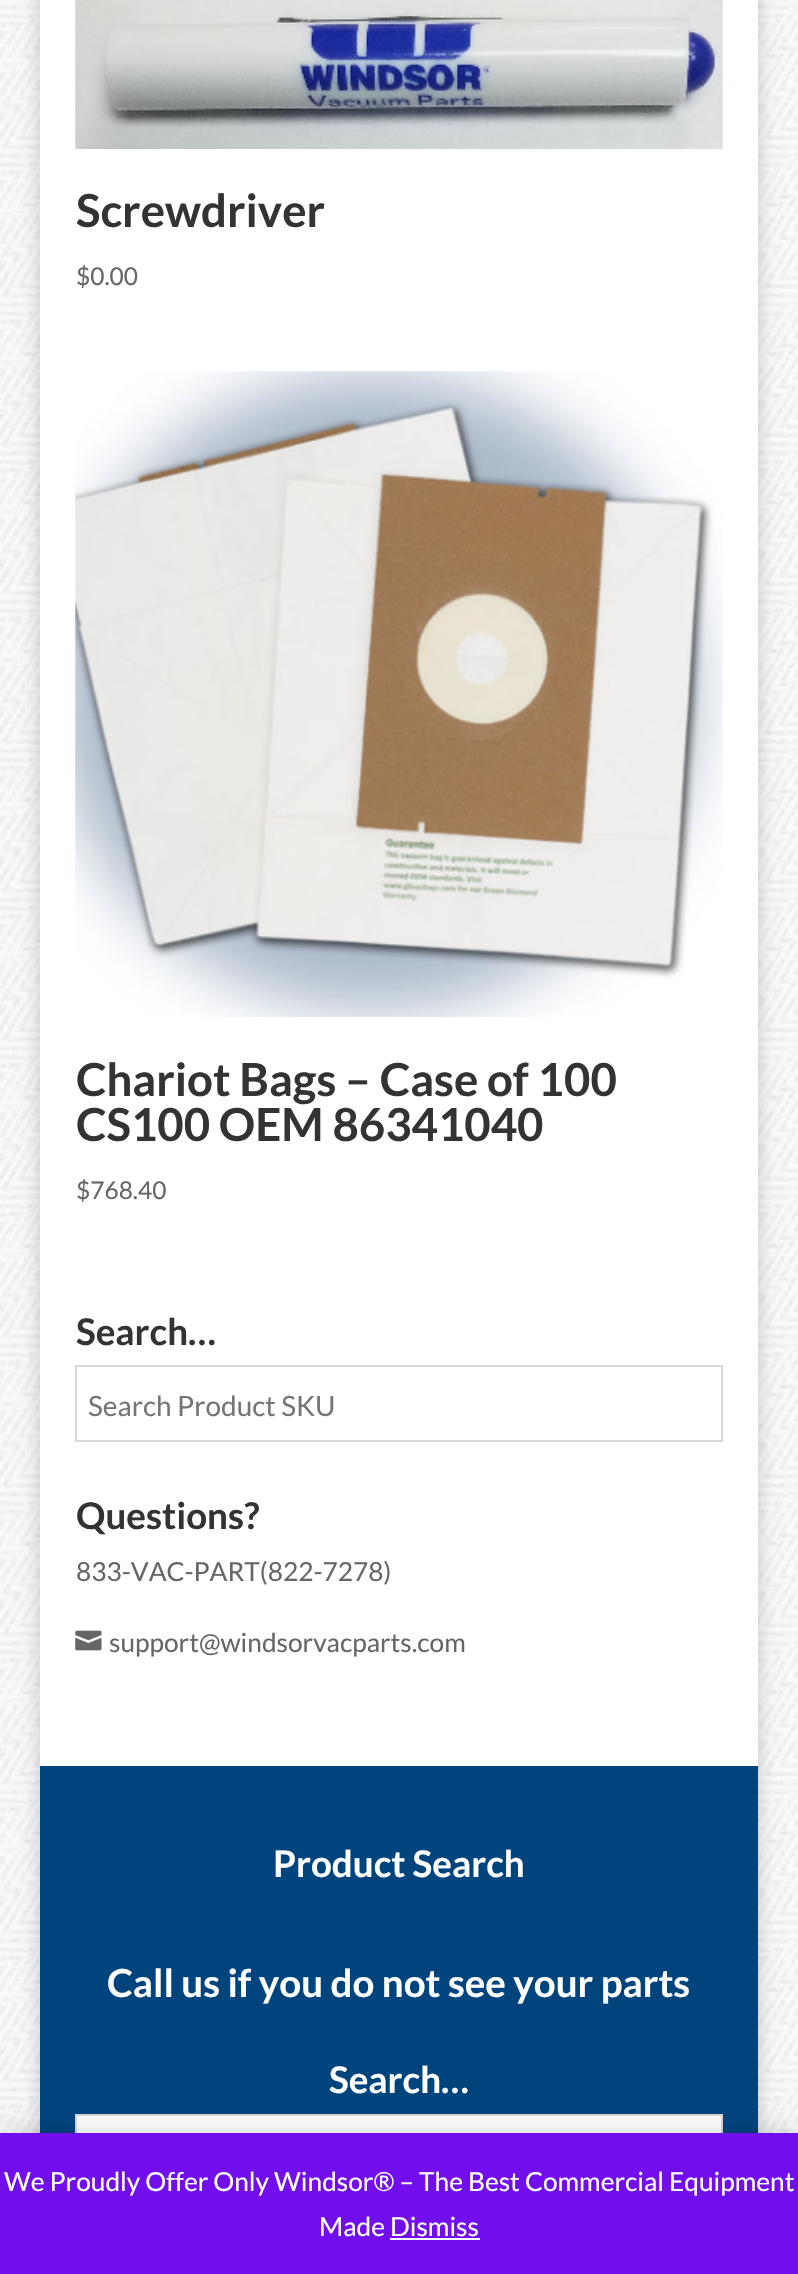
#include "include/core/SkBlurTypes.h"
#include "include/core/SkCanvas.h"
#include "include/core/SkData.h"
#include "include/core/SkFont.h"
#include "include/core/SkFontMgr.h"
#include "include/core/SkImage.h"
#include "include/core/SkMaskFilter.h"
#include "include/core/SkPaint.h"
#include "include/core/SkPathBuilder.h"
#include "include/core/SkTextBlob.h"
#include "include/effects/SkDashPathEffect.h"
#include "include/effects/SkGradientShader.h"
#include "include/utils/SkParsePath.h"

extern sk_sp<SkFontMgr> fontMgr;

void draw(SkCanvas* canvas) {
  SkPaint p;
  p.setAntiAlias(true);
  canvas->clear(SK_ColorWHITE);
  canvas->drawImageRect(SkImages::DeferredFromEncodedData(SkData::MakeFromFileName("images/1.png")), SkRect::MakeLTRB(0, 0, 798, 2133), SkSamplingOptions());
  p.setColor(SkColorSetARGB(51, 0, 0, 0));
  p.setMaskFilter(SkMaskFilter::MakeBlur(kNormal_SkBlurStyle, 9));
  canvas->drawRect(SkRect::MakeLTRB(40, -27, 758, 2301), p);
  p.setMaskFilter(nullptr);
  p.setColor(SK_ColorWHITE);
  canvas->drawRect(SkRect::MakeLTRB(40, 0, 758, 1766), p);
  canvas->drawImageRect(SkImages::DeferredFromEncodedData(SkData::MakeFromFileName("images/2.png")), SkRect::MakeLTRB(75, 0, 723, 149), SkSamplingOptions());
  canvas->drawImageRect(SkImages::DeferredFromEncodedData(SkData::MakeFromFileName("images/3.png")), SkRect::MakeLTRB(75, 371, 723, 1017), SkSamplingOptions());
  p.setStyle(SkPaint::kStroke_Style);
  p.setStrokeWidth(2);
  p.setColor(SkColorSetRGB(216, 216, 216));
  canvas->drawRect(SkRect::MakeLTRB(76, 1366, 722, 1441), p);
  canvas->drawImageRect(SkImages::DeferredFromEncodedData(SkData::MakeFromFileName("images/4.png")), SkRect::MakeLTRB(75, 1630, 102, 1651), SkSamplingOptions());
  p.setStyle(SkPaint::kFill_Style);
  p.setColor(SkColorSetRGB(0, 68, 126));
  canvas->drawRect(SkRect::MakeLTRB(40, 1766, 758, 2133), p);
  p.setColor(SK_ColorWHITE);
  canvas->drawRect(SkRect::MakeLTRB(77, 2116, 721, 2133), p);
  p.setStyle(SkPaint::kStroke_Style);
  p.setColor(SkColorSetRGB(216, 216, 216));
  canvas->drawRect(SkRect::MakeLTRB(76, 2115, 722, 2190), p);
  p.setStyle(SkPaint::kFill_Style);
  p.setColor(SkColorSetARGB(51, 0, 0, 0));
  p.setMaskFilter(SkMaskFilter::MakeBlur(kNormal_SkBlurStyle, 13));
  canvas->drawRect(SkRect::MakeLTRB(0, 2135, 798, 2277), p);
  p.setMaskFilter(nullptr);
  p.setColor(SkColorSetRGB(114, 14, 236));
  canvas->drawRect(SkRect::MakeLTRB(0, 2133, 798, 2274), p);
  p.setColor(SkColorSetRGB(252, 251, 254));
  canvas->drawRect(SkRect::MakeLTRB(390, 2238, 480, 2240), p);
  SkFont font1(fontMgr->matchFamilyStyle("Lato", SkFontStyle::Bold()), 45.5f);
  font1.setSubpixel(true);
  p.setColor(SkColorSetRGB(51, 51, 51));
  canvas->drawString("Screwdriver", 76, 227, font1, p);
  SkFont font2(fontMgr->matchFamilyStyle("Lato", SkFontStyle::Normal()), 24.5f);
  font2.setSubpixel(true);
  p.setColor(SkColorSetRGB(102, 102, 102));
  canvas->drawString("$0.00", 76, 285, font2, p);
  p.setColor(SkColorSetRGB(51, 51, 51));
  canvas->drawString("Chariot Bags – Case of 100", 76, 1096, font1, p);
  canvas->drawString("CS100 OEM 86341040", 76, 1141, font1, p);
  p.setColor(SkColorSetRGB(102, 102, 102));
  canvas->drawString("$768.40", 76, 1199, font2, p);
  SkFont font3(fontMgr->matchFamilyStyle("Lato", SkFontStyle::Bold()), 36.75f);
  font3.setSubpixel(true);
  p.setColor(SkColorSetRGB(51, 51, 51));
  canvas->drawString("Search…", 76, 1345, font3, p);
  SkFont font4(fontMgr->matchFamilyStyle("Lato", SkFontStyle::Normal()), 28);
  font4.setSubpixel(true);
  p.setColor(SkColorSetRGB(117, 117, 117));
  canvas->drawString("Search Product SKU", 88, 1416, font4, p);
  p.setColor(SkColorSetRGB(51, 51, 51));
  canvas->drawString("Questions?", 76, 1529, font3, p);
  SkFont font5(fontMgr->matchFamilyStyle("Lato", SkFontStyle::Normal()), 26.25f);
  font5.setSubpixel(true);
  p.setColor(SkColorSetRGB(102, 102, 102));
  canvas->drawString("833-VAC-PART(822-7278)", 76, 1581, font5, p);
  canvas->drawString("support@windsorvacparts.com", 109, 1652, font5, p);
  p.setColor(SK_ColorWHITE);
  canvas->drawString("Product Search", 273, 1877, font3, p);
  SkFont font6(fontMgr->matchFamilyStyle("Lato", SkFontStyle::Bold()), 38.5f);
  font6.setSubpixel(true);
  canvas->drawString("Call us if you do not see your parts", 107, 1997, font6, p);
  canvas->drawString("Search…", 329, 2093, font3, p);
  canvas->drawString("We Proudly Offer Only Windsor® – The Best Commercial Equipment", 4, 2191, font5, p);
  canvas->drawString("Made Dismiss", 319, 2236, font5, p);
}
